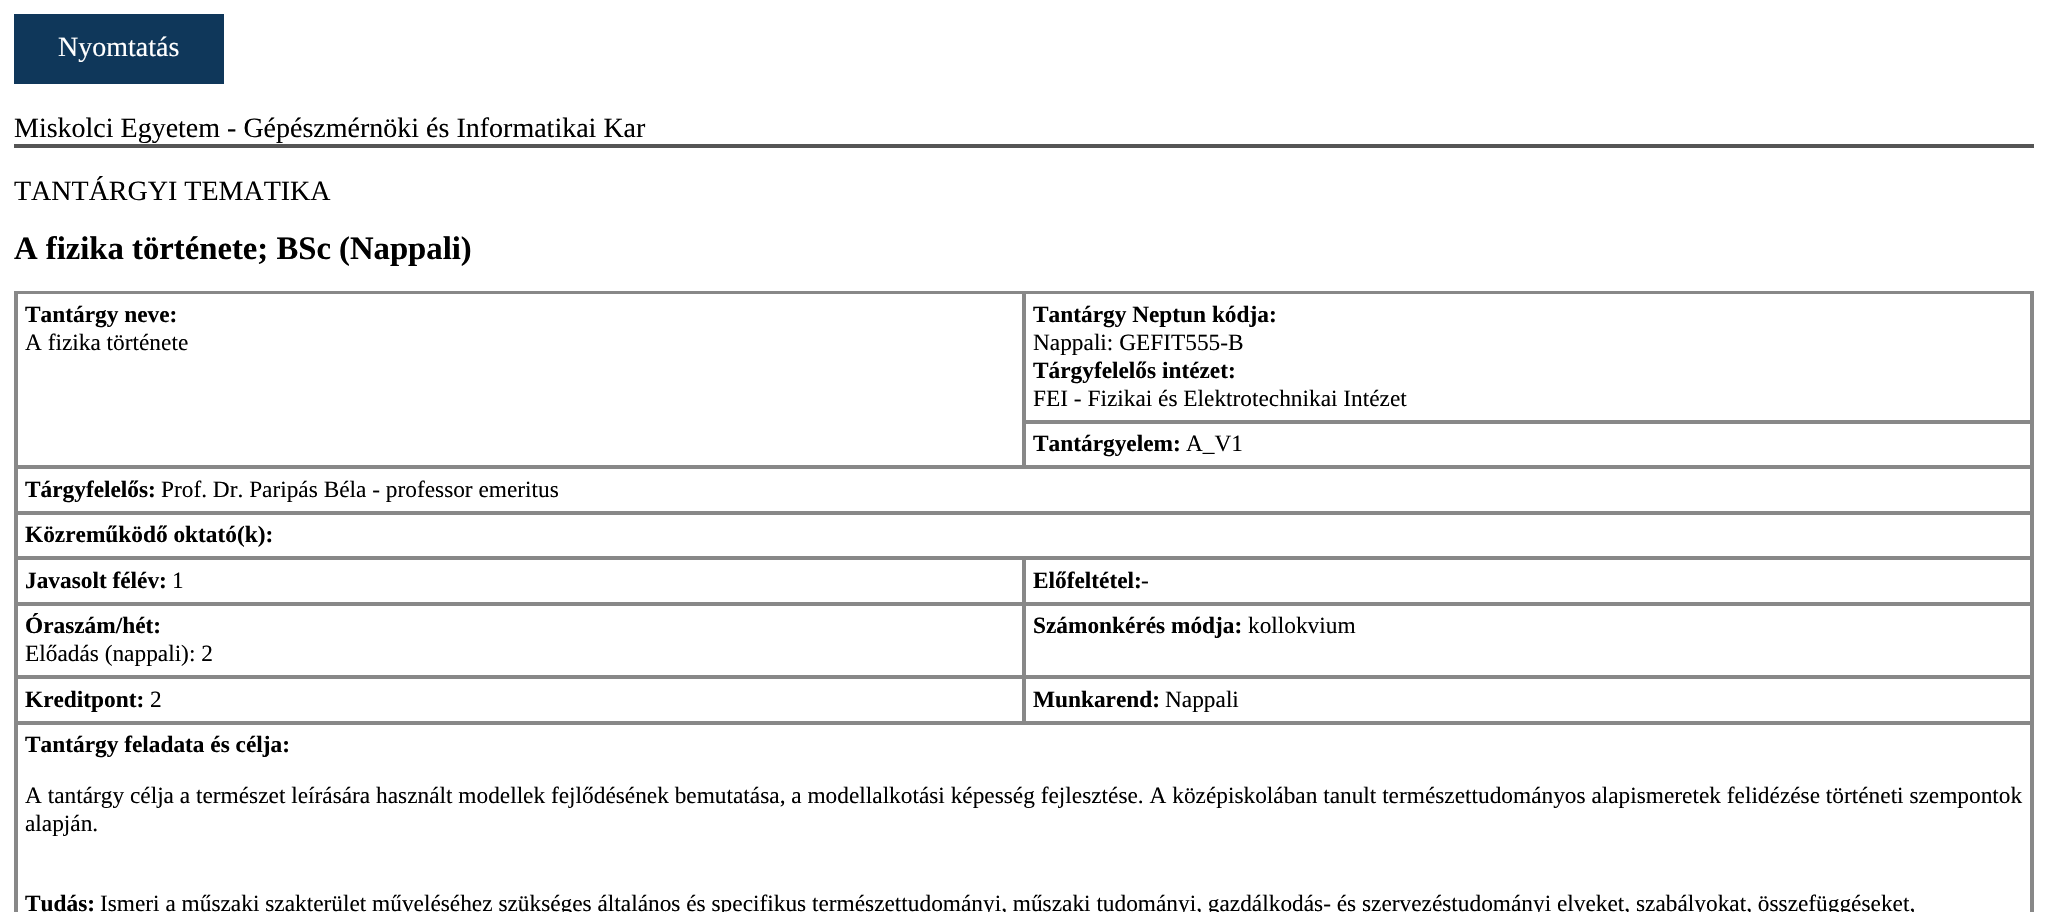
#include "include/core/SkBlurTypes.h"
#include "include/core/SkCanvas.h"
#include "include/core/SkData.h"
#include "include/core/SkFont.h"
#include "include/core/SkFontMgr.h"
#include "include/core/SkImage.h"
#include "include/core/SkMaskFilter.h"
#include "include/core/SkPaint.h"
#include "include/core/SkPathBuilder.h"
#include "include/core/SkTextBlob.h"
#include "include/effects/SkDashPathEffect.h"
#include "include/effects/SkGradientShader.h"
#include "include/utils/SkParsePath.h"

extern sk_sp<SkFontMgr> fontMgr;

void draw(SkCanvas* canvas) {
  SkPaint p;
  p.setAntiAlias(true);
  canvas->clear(SK_ColorWHITE);
  p.setColor(SkColorSetRGB(15, 55, 90));
  canvas->drawRect(SkRect::MakeLTRB(14, 14, 224, 84), p);
  p.setColor(SkColorSetRGB(85, 85, 85));
  canvas->drawRect(SkRect::MakeLTRB(14, 144, 2034, 148), p);
  p.setStyle(SkPaint::kStroke_Style);
  p.setStrokeWidth(2);
  p.setColor(SkColorSetRGB(136, 136, 136));
  canvas->drawRect(SkRect::MakeLTRB(15, 292, 2033, 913), p);
  canvas->drawRect(SkRect::MakeLTRB(17, 293, 1023, 466), p);
  canvas->drawRect(SkRect::MakeLTRB(1025, 293, 2031, 421), p);
  canvas->drawRect(SkRect::MakeLTRB(1025, 423, 2031, 466), p);
  canvas->drawRect(SkRect::MakeLTRB(17, 468, 2031, 512), p);
  canvas->drawRect(SkRect::MakeLTRB(17, 514, 2031, 557), p);
  canvas->drawRect(SkRect::MakeLTRB(17, 559, 1023, 603), p);
  canvas->drawRect(SkRect::MakeLTRB(1025, 559, 2031, 603), p);
  canvas->drawRect(SkRect::MakeLTRB(17, 605, 1023, 676), p);
  canvas->drawRect(SkRect::MakeLTRB(1025, 605, 2031, 676), p);
  canvas->drawRect(SkRect::MakeLTRB(17, 678, 1023, 722), p);
  canvas->drawRect(SkRect::MakeLTRB(1025, 678, 2031, 722), p);
  canvas->drawRect(SkRect::MakeLTRB(17, 724, 2031, 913), p);
  SkFont font1(fontMgr->matchFamilyStyle("Liberation Serif", SkFontStyle::Normal()), 28);
  font1.setSubpixel(true);
  p.setStyle(SkPaint::kFill_Style);
  p.setColor(SK_ColorWHITE);
  canvas->drawString("Nyomtatás", 58, 56, font1, p);
  p.setColor(SK_ColorBLACK);
  canvas->drawString("Miskolci Egyetem - Gépészmérnöki és Informatikai Kar", 14, 137, font1, p);
  canvas->drawString("TANTÁRGYI TEMATIKA", 14, 200, font1, p);
  SkFont font2(fontMgr->matchFamilyStyle("Liberation Serif", SkFontStyle::Bold()), 32.7f);
  font2.setSubpixel(true);
  canvas->drawString("A fizika története; BSc (Nappali)", 14, 259, font2, p);
  SkFont font3(fontMgr->matchFamilyStyle("Liberation Serif", SkFontStyle::Bold()), 23.33f);
  font3.setSubpixel(true);
  canvas->drawString("Tantárgy neve:", 25, 322, font3, p);
  SkFont font4(fontMgr->matchFamilyStyle("Liberation Serif", SkFontStyle::Normal()), 23.33f);
  font4.setSubpixel(true);
  canvas->drawString("A fizika története", 25, 350, font4, p);
  canvas->drawString("Tantárgy Neptun kódja:", 1033, 322, font3, p);
  canvas->drawString("Nappali: GEFIT555-B", 1033, 350, font4, p);
  canvas->drawString("Tárgyfelelős intézet:", 1033, 378, font3, p);
  canvas->drawString("FEI - Fizikai és Elektrotechnikai Intézet", 1033, 406, font4, p);
  canvas->drawString("Tantárgyelem:", 1033, 451, font3, p);
  canvas->drawString("A_V1", 1186, 451, font4, p);
  canvas->drawString("Tárgyfelelős:", 25, 497, font3, p);
  canvas->drawString("Prof. Dr. Paripás Béla - professor emeritus", 161, 497, font4, p);
  canvas->drawString("Közreműködő oktató(k):", 25, 542, font3, p);
  canvas->drawString("Javasolt félév:", 25, 588, font3, p);
  canvas->drawString("1", 172, 588, font4, p);
  canvas->drawString("Előfeltétel:", 1033, 588, font3, p);
  canvas->drawString("-", 1141, 588, font4, p);
  canvas->drawString("Óraszám/hét:", 25, 633, font3, p);
  canvas->drawString("Előadás (nappali): 2", 25, 661, font4, p);
  canvas->drawString("Számonkérés módja:", 1033, 633, font3, p);
  canvas->drawString("kollokvium", 1248, 633, font4, p);
  canvas->drawString("Kreditpont:", 25, 707, font3, p);
  canvas->drawString("2", 150, 707, font4, p);
  canvas->drawString("Munkarend:", 1033, 707, font3, p);
  canvas->drawString("Nappali", 1165, 707, font4, p);
  canvas->drawString("Tantárgy feladata és célja:", 25, 752, font3, p);
  canvas->drawString("A tantárgy célja a természet leírására használt modellek fejlődésének bemutatása, a modellalkotási képesség fejlesztése. A középiskolában tanult természettudományos alapismeretek felidézése történeti szempontok", 25, 803, font4, p);
  canvas->drawString("alapján.", 25, 831, font4, p);
  canvas->drawString("Tudás:", 25, 911, font3, p);
  canvas->drawString("Ismeri a műszaki szakterület műveléséhez szükséges általános és specifikus természettudományi, műszaki tudományi, gazdálkodás- és szervezéstudományi elveket, szabályokat, összefüggéseket,", 100, 911, font4, p);
}
